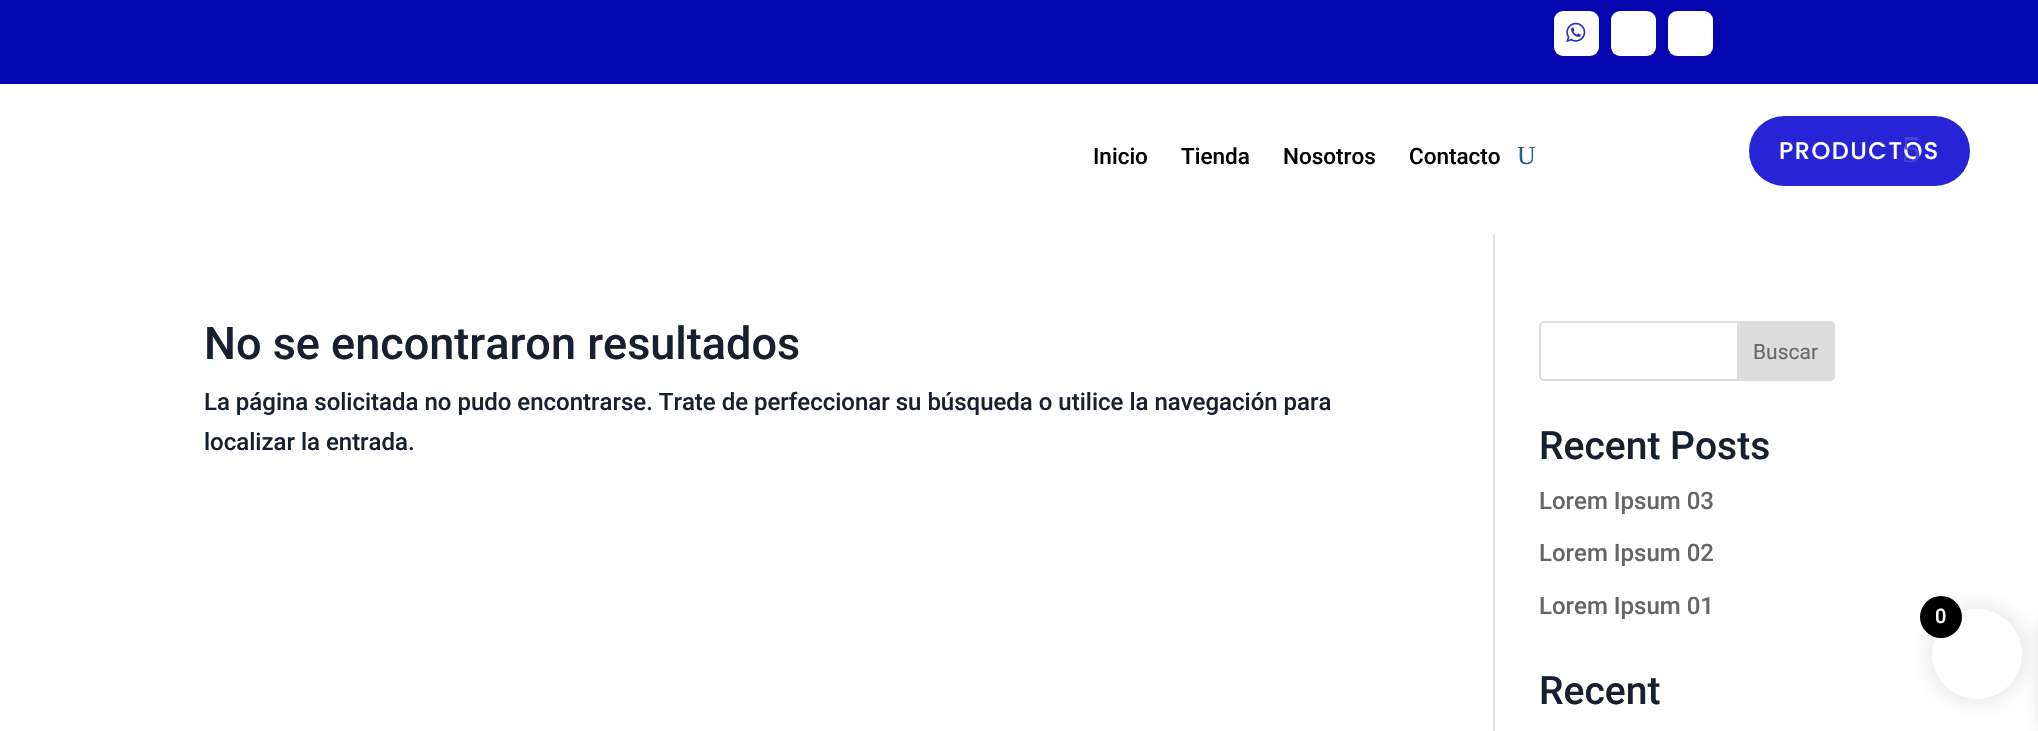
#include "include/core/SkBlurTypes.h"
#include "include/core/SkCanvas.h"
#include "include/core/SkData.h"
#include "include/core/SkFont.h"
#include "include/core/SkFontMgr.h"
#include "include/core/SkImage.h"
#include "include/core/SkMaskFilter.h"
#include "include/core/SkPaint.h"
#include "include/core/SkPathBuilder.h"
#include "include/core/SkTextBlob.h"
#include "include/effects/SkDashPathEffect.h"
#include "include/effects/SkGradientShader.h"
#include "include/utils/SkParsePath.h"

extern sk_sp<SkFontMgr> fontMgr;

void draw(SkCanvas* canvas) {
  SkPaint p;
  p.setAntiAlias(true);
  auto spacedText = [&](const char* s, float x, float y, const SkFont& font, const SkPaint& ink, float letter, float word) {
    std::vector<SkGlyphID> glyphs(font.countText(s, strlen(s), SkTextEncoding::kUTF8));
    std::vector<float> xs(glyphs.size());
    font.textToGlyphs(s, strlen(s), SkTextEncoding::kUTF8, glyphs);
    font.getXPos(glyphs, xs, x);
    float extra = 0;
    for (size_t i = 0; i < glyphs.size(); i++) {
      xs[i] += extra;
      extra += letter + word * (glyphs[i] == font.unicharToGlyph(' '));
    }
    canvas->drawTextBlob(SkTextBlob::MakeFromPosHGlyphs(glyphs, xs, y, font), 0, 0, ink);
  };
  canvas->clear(SK_ColorWHITE);
  p.setColor(SkColorSetRGB(5, 5, 175));
  canvas->drawRect(SkRect::MakeLTRB(0, 0, 2038, 84), p);
  p.setColor(SK_ColorWHITE);
  canvas->drawRoundRect(SkRect::MakeLTRB(1554, 11, 1599, 56), 9, 9, p);
  canvas->drawImageRect(SkImages::DeferredFromEncodedData(SkData::MakeFromFileName("images/1.png")), SkRect::MakeLTRB(1566, 22, 1586, 43), SkSamplingOptions());
  canvas->drawRoundRect(SkRect::MakeLTRB(1611, 11, 1656, 56), 9, 9, p);
  canvas->drawRoundRect(SkRect::MakeLTRB(1668, 11, 1713, 56), 9, 9, p);
  p.setColor(SkColorSetRGB(39, 36, 214));
  canvas->drawRoundRect(SkRect::MakeLTRB(1749, 116, 1970, 186), 35, 35, p);
  p.setColor(SkColorSetRGB(226, 226, 226));
  canvas->drawRect(SkRect::MakeLTRB(1493, 234, 1495, 731), p);
  p.setStyle(SkPaint::kStroke_Style);
  p.setStrokeWidth(2);
  p.setColor(SkColorSetRGB(221, 221, 221));
  canvas->drawRoundRect(SkRect::MakeLTRB(1540, 322, 1834, 380), 4, 4, p);
  p.setStyle(SkPaint::kFill_Style);
  canvas->drawPath(SkPathBuilder().moveTo(1738, 322).lineTo(1830, 322).cubicTo(1832, 322, 1834, 324, 1834, 326).lineTo(1834, 376).cubicTo(1834, 378, 1832, 380, 1830, 380).lineTo(1738, 380).close().detach(), p);
  p.setStyle(SkPaint::kStroke_Style);
  canvas->drawPath(SkPathBuilder().moveTo(1738, 322).lineTo(1830, 322).cubicTo(1832, 322, 1834, 324, 1834, 326).lineTo(1834, 376).cubicTo(1834, 378, 1832, 380, 1830, 380).lineTo(1738, 380).close().detach(), p);
  p.setStyle(SkPaint::kFill_Style);
  p.setColor(SkColorSetARGB(26, 0, 0, 0));
  p.setMaskFilter(SkMaskFilter::MakeBlur(kNormal_SkBlurStyle, 11));
  canvas->drawRoundRect(SkRect::MakeLTRB(1929, 606, 2025, 702), 48, 48, p);
  p.setMaskFilter(nullptr);
  p.setMaskFilter(SkMaskFilter::MakeBlur(kNormal_SkBlurStyle, 7.5f));
  canvas->drawRect(SkRect::MakeLTRB(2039, 624, 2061, 731), p);
  p.setMaskFilter(nullptr);
  p.setColor(SK_ColorWHITE);
  canvas->drawCircle(1977, 654, 45, p);
  p.setColor(SK_ColorBLACK);
  canvas->drawCircle(1941, 617, 21, p);
  SkFont font1(fontMgr->matchFamilyStyle("Roboto", SkFontStyle(500, SkFontStyle::kNormal_Width, SkFontStyle::kUpright_Slant)), 22.5f);
  font1.setSubpixel(true);
  canvas->drawString("Inicio", 1093, 164, font1, p);
  canvas->drawString("Tienda", 1181, 164, font1, p);
  canvas->drawString("Nosotros", 1283, 164, font1, p);
  canvas->drawString("Contacto", 1409, 164, font1, p);
  SkFont font2(fontMgr->matchFamilyStyle("Liberation Serif", SkFontStyle::Normal()), 26);
  font2.setSubpixel(true);
  p.setColor(SkColorSetRGB(35, 96, 146));
  canvas->drawString("U", 1517, 164, font2, p);
  SkFont font3(fontMgr->matchFamilyStyle("Poppins", SkFontStyle(500, SkFontStyle::kNormal_Width, SkFontStyle::kUpright_Slant)), 24);
  font3.setSubpixel(true);
  p.setColor(SK_ColorWHITE);
  spacedText("PRODUCTOS", 1779, 159, font3, p, 1.5f, 0);
  SkFont font4(fontMgr->matchFamilyStyle("Liberation Serif", SkFontStyle::Normal()), 38);
  font4.setSubpixel(true);
  p.setColor(SkColorSetRGB(71, 68, 220));
  spacedText("5", 1902, 162, font4, p, 1.5f, 0);
  SkFont font5(fontMgr->matchFamilyStyle("Roboto", SkFontStyle(500, SkFontStyle::kNormal_Width, SkFontStyle::kUpright_Slant)), 45);
  font5.setSubpixel(true);
  p.setColor(SkColorSetRGB(23, 32, 48));
  canvas->drawString("No se encontraron resultados", 204, 359, font5, p);
  SkFont font6(fontMgr->matchFamilyStyle("Roboto", SkFontStyle(500, SkFontStyle::kNormal_Width, SkFontStyle::kUpright_Slant)), 24);
  font6.setSubpixel(true);
  canvas->drawString("La página solicitada no pudo encontrarse. Trate de perfeccionar su búsqueda o utilice la navegación para", 204, 410, font6, p);
  canvas->drawString("localizar la entrada.", 204, 450, font6, p);
  SkFont font7(fontMgr->matchFamilyStyle("Roboto", SkFontStyle::Normal()), 21);
  font7.setSubpixel(true);
  p.setColor(SkColorSetRGB(102, 102, 102));
  canvas->drawString("Buscar", 1753, 359, font7, p);
  SkFont font8(fontMgr->matchFamilyStyle("Roboto", SkFontStyle(500, SkFontStyle::kNormal_Width, SkFontStyle::kUpright_Slant)), 39);
  font8.setSubpixel(true);
  p.setColor(SkColorSetRGB(23, 32, 48));
  canvas->drawString("Recent Posts", 1539, 459, font8, p);
  p.setColor(SkColorSetRGB(102, 102, 102));
  canvas->drawString("Lorem Ipsum 03", 1539, 509, font6, p);
  canvas->drawString("Lorem Ipsum 02", 1539, 561, font6, p);
  canvas->drawString("Lorem Ipsum 01", 1539, 614, font6, p);
  p.setColor(SkColorSetRGB(23, 32, 48));
  canvas->drawString("Recent", 1539, 704, font8, p);
  SkFont font9(fontMgr->matchFamilyStyle("Roboto", SkFontStyle(500, SkFontStyle::kNormal_Width, SkFontStyle::kUpright_Slant)), 20);
  font9.setSubpixel(true);
  p.setColor(SK_ColorWHITE);
  canvas->drawString("0", 1935, 623, font9, p);
}
